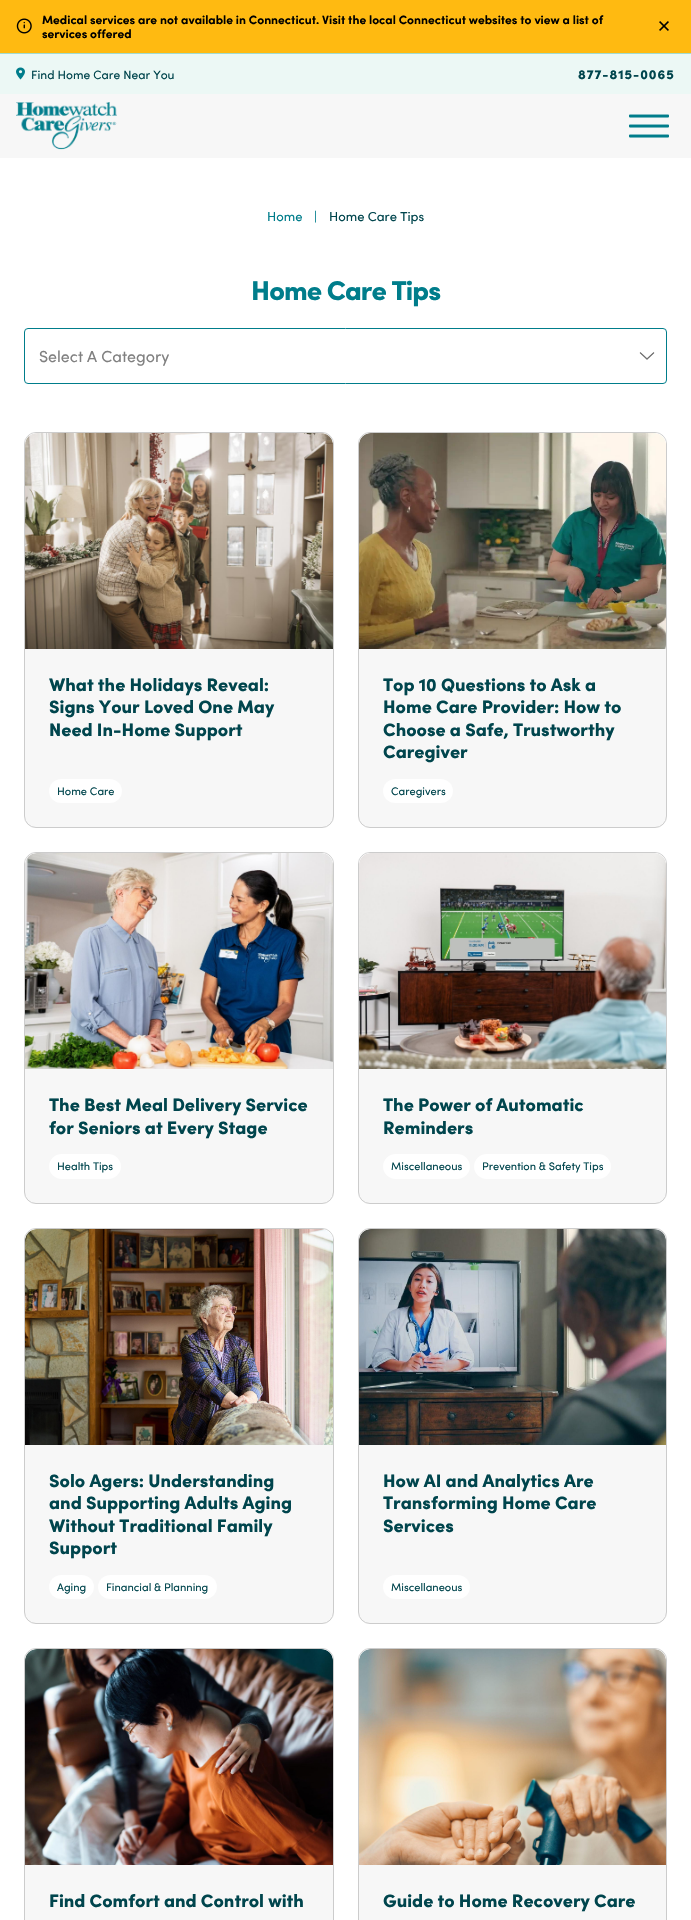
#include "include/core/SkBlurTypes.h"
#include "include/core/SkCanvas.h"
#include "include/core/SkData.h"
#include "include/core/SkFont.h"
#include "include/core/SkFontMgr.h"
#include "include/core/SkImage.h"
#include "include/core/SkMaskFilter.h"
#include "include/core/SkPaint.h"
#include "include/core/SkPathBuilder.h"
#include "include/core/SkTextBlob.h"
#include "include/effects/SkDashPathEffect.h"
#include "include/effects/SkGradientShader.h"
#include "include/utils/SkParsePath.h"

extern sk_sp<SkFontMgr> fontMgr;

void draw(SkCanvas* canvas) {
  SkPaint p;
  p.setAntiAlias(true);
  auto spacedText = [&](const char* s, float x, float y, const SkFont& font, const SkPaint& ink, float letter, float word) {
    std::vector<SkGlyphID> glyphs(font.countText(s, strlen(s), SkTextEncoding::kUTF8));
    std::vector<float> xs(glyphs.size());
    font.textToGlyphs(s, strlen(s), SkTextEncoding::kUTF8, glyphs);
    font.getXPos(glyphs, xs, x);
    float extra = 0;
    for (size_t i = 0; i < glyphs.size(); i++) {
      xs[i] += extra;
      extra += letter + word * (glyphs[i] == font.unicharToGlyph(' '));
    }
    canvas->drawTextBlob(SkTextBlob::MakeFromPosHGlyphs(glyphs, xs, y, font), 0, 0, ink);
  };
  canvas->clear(SK_ColorWHITE);
  p.setColor(SkColorSetRGB(255, 186, 17));
  canvas->drawRect(SkRect::MakeLTRB(0, 0, 691, 53), p);
  p.setColor(SkColorSetRGB(162, 220, 207));
  canvas->drawRect(SkRect::MakeLTRB(0, 53, 691, 54), p);
  canvas->drawImageRect(SkImages::DeferredFromEncodedData(SkData::MakeFromFileName("images/1.png")), SkRect::MakeLTRB(16, 18, 32, 34), SkSamplingOptions());
  canvas->drawImageRect(SkImages::DeferredFromEncodedData(SkData::MakeFromFileName("images/2.png")), SkRect::MakeLTRB(659, 21, 669, 31), SkSamplingOptions());
  p.setColor(SkColorSetRGB(247, 247, 247));
  canvas->drawRect(SkRect::MakeLTRB(0, 94, 691, 158), p);
  p.setColor(SkColorSetRGB(236, 248, 245));
  canvas->drawRect(SkRect::MakeLTRB(0, 54, 691, 94), p);
  canvas->drawImageRect(SkImages::DeferredFromEncodedData(SkData::MakeFromFileName("images/3.png")), SkRect::MakeLTRB(16, 67, 25, 80), SkSamplingOptions());
  canvas->drawImageRect(SkImages::DeferredFromEncodedData(SkData::MakeFromFileName("images/4.png")), SkRect::MakeLTRB(16, 102, 117, 150), SkSamplingOptions());
  canvas->drawImageRect(SkImages::DeferredFromEncodedData(SkData::MakeFromFileName("images/5.png")), SkRect::MakeLTRB(629, 114, 669, 138), SkSamplingOptions());
  p.setStyle(SkPaint::kStroke_Style);
  p.setStrokeWidth(1);
  p.setColor(SkColorSetRGB(0, 125, 139));
  canvas->drawRoundRect(SkRect::MakeLTRB(24.5f, 328.5f, 666.5f, 383.5f), 3.5f, 3.5f, p);
  canvas->drawImageRect(SkImages::DeferredFromEncodedData(SkData::MakeFromFileName("images/6.png")), SkRect::MakeLTRB(639, 352, 655, 360), SkSamplingOptions());
  p.setStyle(SkPaint::kFill_Style);
  p.setColor(SkColorSetRGB(247, 247, 247));
  canvas->drawRoundRect(SkRect::MakeLTRB(24.5f, 432.5f, 333.5f, 827.5f), 11.5f, 11.5f, p);
  p.setStyle(SkPaint::kStroke_Style);
  p.setColor(SkColorSetRGB(204, 204, 204));
  canvas->drawRoundRect(SkRect::MakeLTRB(24.5f, 432.5f, 333.5f, 827.5f), 11.5f, 11.5f, p);
  p.setStyle(SkPaint::kFill_Style);
  p.setColor(SK_ColorWHITE);
  canvas->drawPath(SkPathBuilder().moveTo(36, 433).lineTo(322, 433).cubicTo(328, 433, 333, 438, 333, 444).lineTo(333, 649).lineTo(25, 649).lineTo(25, 444).cubicTo(25, 438, 30, 433, 36, 433).close().detach(), p);
  canvas->drawImageRect(SkImages::DeferredFromEncodedData(SkData::MakeFromFileName("images/7.png")), SkRect::MakeLTRB(25, 433, 333, 649), SkSamplingOptions());
  canvas->drawRoundRect(SkRect::MakeLTRB(49, 779, 122, 803), 12, 12, p);
  p.setColor(SkColorSetRGB(247, 247, 247));
  canvas->drawRoundRect(SkRect::MakeLTRB(358.5f, 432.5f, 666.5f, 827.5f), 11.5f, 11.5f, p);
  p.setStyle(SkPaint::kStroke_Style);
  p.setColor(SkColorSetRGB(204, 204, 204));
  canvas->drawRoundRect(SkRect::MakeLTRB(358.5f, 432.5f, 666.5f, 827.5f), 11.5f, 11.5f, p);
  p.setStyle(SkPaint::kFill_Style);
  p.setColor(SK_ColorWHITE);
  canvas->drawPath(SkPathBuilder().moveTo(370, 433).lineTo(655, 433).cubicTo(661, 433, 666, 438, 666, 444).lineTo(666, 649).lineTo(359, 649).lineTo(359, 444).cubicTo(359, 438, 364, 433, 370, 433).close().detach(), p);
  canvas->drawImageRect(SkImages::DeferredFromEncodedData(SkData::MakeFromFileName("images/8.png")), SkRect::MakeLTRB(359, 433, 666, 649), SkSamplingOptions());
  canvas->drawRoundRect(SkRect::MakeLTRB(383, 779, 453, 803), 12, 12, p);
  p.setColor(SkColorSetRGB(247, 247, 247));
  canvas->drawRoundRect(SkRect::MakeLTRB(24.5f, 852.5f, 333.5f, 1203.5f), 11.5f, 11.5f, p);
  p.setStyle(SkPaint::kStroke_Style);
  p.setColor(SkColorSetRGB(204, 204, 204));
  canvas->drawRoundRect(SkRect::MakeLTRB(24.5f, 852.5f, 333.5f, 1203.5f), 11.5f, 11.5f, p);
  p.setStyle(SkPaint::kFill_Style);
  p.setColor(SK_ColorWHITE);
  canvas->drawPath(SkPathBuilder().moveTo(36, 853).lineTo(322, 853).cubicTo(328, 853, 333, 858, 333, 864).lineTo(333, 1069).lineTo(25, 1069).lineTo(25, 864).cubicTo(25, 858, 30, 853, 36, 853).close().detach(), p);
  canvas->drawImageRect(SkImages::DeferredFromEncodedData(SkData::MakeFromFileName("images/9.png")), SkRect::MakeLTRB(25, 853, 333, 1069), SkSamplingOptions());
  canvas->drawRoundRect(SkRect::MakeLTRB(49, 1154, 121, 1179), 12.5f, 12.5f, p);
  p.setColor(SkColorSetRGB(247, 247, 247));
  canvas->drawRoundRect(SkRect::MakeLTRB(358.5f, 852.5f, 666.5f, 1203.5f), 11.5f, 11.5f, p);
  p.setStyle(SkPaint::kStroke_Style);
  p.setColor(SkColorSetRGB(204, 204, 204));
  canvas->drawRoundRect(SkRect::MakeLTRB(358.5f, 852.5f, 666.5f, 1203.5f), 11.5f, 11.5f, p);
  p.setStyle(SkPaint::kFill_Style);
  p.setColor(SK_ColorWHITE);
  canvas->drawPath(SkPathBuilder().moveTo(370, 853).lineTo(655, 853).cubicTo(661, 853, 666, 858, 666, 864).lineTo(666, 1069).lineTo(359, 1069).lineTo(359, 864).cubicTo(359, 858, 364, 853, 370, 853).close().detach(), p);
  canvas->drawImageRect(SkImages::DeferredFromEncodedData(SkData::MakeFromFileName("images/10.png")), SkRect::MakeLTRB(359, 853, 666, 1069), SkSamplingOptions());
  canvas->drawRoundRect(SkRect::MakeLTRB(383, 1154, 470, 1179), 12.5f, 12.5f, p);
  canvas->drawRoundRect(SkRect::MakeLTRB(474, 1154, 611, 1179), 12.5f, 12.5f, p);
  p.setColor(SkColorSetRGB(247, 247, 247));
  canvas->drawRoundRect(SkRect::MakeLTRB(24.5f, 1228.5f, 333.5f, 1623.5f), 11.5f, 11.5f, p);
  p.setStyle(SkPaint::kStroke_Style);
  p.setColor(SkColorSetRGB(204, 204, 204));
  canvas->drawRoundRect(SkRect::MakeLTRB(24.5f, 1228.5f, 333.5f, 1623.5f), 11.5f, 11.5f, p);
  p.setStyle(SkPaint::kFill_Style);
  p.setColor(SK_ColorWHITE);
  canvas->drawPath(SkPathBuilder().moveTo(36, 1229).lineTo(322, 1229).cubicTo(328, 1229, 333, 1234, 333, 1240).lineTo(333, 1445).lineTo(25, 1445).lineTo(25, 1240).cubicTo(25, 1234, 30, 1229, 36, 1229).close().detach(), p);
  canvas->drawImageRect(SkImages::DeferredFromEncodedData(SkData::MakeFromFileName("images/11.png")), SkRect::MakeLTRB(25, 1229, 333, 1445), SkSamplingOptions());
  canvas->drawRoundRect(SkRect::MakeLTRB(49, 1575, 94, 1599), 12, 12, p);
  canvas->drawRoundRect(SkRect::MakeLTRB(98, 1575, 217, 1599), 12, 12, p);
  p.setColor(SkColorSetRGB(247, 247, 247));
  canvas->drawRoundRect(SkRect::MakeLTRB(358.5f, 1228.5f, 666.5f, 1623.5f), 11.5f, 11.5f, p);
  p.setStyle(SkPaint::kStroke_Style);
  p.setColor(SkColorSetRGB(204, 204, 204));
  canvas->drawRoundRect(SkRect::MakeLTRB(358.5f, 1228.5f, 666.5f, 1623.5f), 11.5f, 11.5f, p);
  p.setStyle(SkPaint::kFill_Style);
  p.setColor(SK_ColorWHITE);
  canvas->drawPath(SkPathBuilder().moveTo(370, 1229).lineTo(655, 1229).cubicTo(661, 1229, 666, 1234, 666, 1240).lineTo(666, 1445).lineTo(359, 1445).lineTo(359, 1240).cubicTo(359, 1234, 364, 1229, 370, 1229).close().detach(), p);
  canvas->drawImageRect(SkImages::DeferredFromEncodedData(SkData::MakeFromFileName("images/12.png")), SkRect::MakeLTRB(359, 1229, 666, 1445), SkSamplingOptions());
  canvas->drawRoundRect(SkRect::MakeLTRB(383, 1575, 470, 1599), 12, 12, p);
  p.setColor(SkColorSetRGB(247, 247, 247));
  canvas->drawRoundRect(SkRect::MakeLTRB(24.5f, 1648.5f, 333.5f, 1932.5f), 11.5f, 11.5f, p);
  p.setStyle(SkPaint::kStroke_Style);
  p.setColor(SkColorSetRGB(204, 204, 204));
  canvas->drawRoundRect(SkRect::MakeLTRB(24.5f, 1648.5f, 333.5f, 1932.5f), 11.5f, 11.5f, p);
  p.setStyle(SkPaint::kFill_Style);
  p.setColor(SK_ColorWHITE);
  canvas->drawPath(SkPathBuilder().moveTo(36, 1649).lineTo(322, 1649).cubicTo(328, 1649, 333, 1654, 333, 1660).lineTo(333, 1865).lineTo(25, 1865).lineTo(25, 1660).cubicTo(25, 1654, 30, 1649, 36, 1649).close().detach(), p);
  canvas->drawImageRect(SkImages::DeferredFromEncodedData(SkData::MakeFromFileName("images/13.png")), SkRect::MakeLTRB(25, 1649, 333, 1865), SkSamplingOptions());
  p.setColor(SkColorSetRGB(247, 247, 247));
  canvas->drawRoundRect(SkRect::MakeLTRB(358.5f, 1648.5f, 666.5f, 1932.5f), 11.5f, 11.5f, p);
  p.setStyle(SkPaint::kStroke_Style);
  p.setColor(SkColorSetRGB(204, 204, 204));
  canvas->drawRoundRect(SkRect::MakeLTRB(358.5f, 1648.5f, 666.5f, 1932.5f), 11.5f, 11.5f, p);
  p.setStyle(SkPaint::kFill_Style);
  p.setColor(SK_ColorWHITE);
  canvas->drawPath(SkPathBuilder().moveTo(370, 1649).lineTo(655, 1649).cubicTo(661, 1649, 666, 1654, 666, 1660).lineTo(666, 1865).lineTo(359, 1865).lineTo(359, 1660).cubicTo(359, 1654, 364, 1649, 370, 1649).close().detach(), p);
  canvas->drawImageRect(SkImages::DeferredFromEncodedData(SkData::MakeFromFileName("images/14.png")), SkRect::MakeLTRB(359, 1649, 666, 1865), SkSamplingOptions());
  SkFont font1(fontMgr->matchFamilyStyle("Sofia", SkFontStyle::Bold()), 12);
  font1.setSubpixel(true);
  p.setColor(SK_ColorBLACK);
  canvas->drawString("Medical services are not available in Connecticut. Visit the local Connecticut websites to view a list of", 42, 24, font1, p);
  canvas->drawString("services offered", 42, 38, font1, p);
  SkFont font2(fontMgr->matchFamilyStyle("Sofia", SkFontStyle::Normal()), 12);
  font2.setSubpixel(true);
  p.setColor(SkColorSetRGB(0, 69, 77));
  canvas->drawString("Find Home Care Near You", 31, 79, font2, p);
  SkFont font3(fontMgr->matchFamilyStyle("Sofia", SkFontStyle(900, SkFontStyle::kNormal_Width, SkFontStyle::kUpright_Slant)), 13);
  font3.setSubpixel(true);
  spacedText("877-815-0065", 578, 79, font3, p, 1, 0);
  SkFont font4(fontMgr->matchFamilyStyle("Sofia", SkFontStyle::Normal()), 13);
  font4.setSubpixel(true);
  p.setColor(SkColorSetRGB(0, 125, 139));
  canvas->drawString("Home", 267, 221, font4, p);
  canvas->drawString("|", 314, 221, font4, p);
  p.setColor(SkColorSetRGB(0, 69, 77));
  canvas->drawString("Home Care Tips", 329, 221, font4, p);
  SkFont font5(fontMgr->matchFamilyStyle("Sofia", SkFontStyle(900, SkFontStyle::kNormal_Width, SkFontStyle::kUpright_Slant)), 27.25f);
  font5.setSubpixel(true);
  p.setColor(SkColorSetRGB(0, 125, 139));
  spacedText("Home Care Tips", 251, 300, font5, p, -0.9f, 0);
  SkFont font6(fontMgr->matchFamilyStyle("Sofia", SkFontStyle::Normal()), 16);
  font6.setSubpixel(true);
  p.setColor(SkColorSetRGB(128, 128, 128));
  canvas->drawString("Select A Category", 39, 362, font6, p);
  SkFont font7(fontMgr->matchFamilyStyle("Sofia", SkFontStyle(900, SkFontStyle::kNormal_Width, SkFontStyle::kUpright_Slant)), 18);
  font7.setSubpixel(true);
  p.setColor(SkColorSetRGB(0, 69, 77));
  canvas->drawString("What the Holidays Reveal:", 49, 691, font7, p);
  canvas->drawString("Signs Your Loved One May", 49, 713, font7, p);
  canvas->drawString("Need In-Home Support", 49, 736, font7, p);
  SkFont font8(fontMgr->matchFamilyStyle("Sofia", SkFontStyle::Normal()), 11);
  font8.setSubpixel(true);
  canvas->drawString("Home Care", 57, 795, font8, p);
  canvas->drawString("Top 10 Questions to Ask a", 383, 691, font7, p);
  canvas->drawString("Home Care Provider: How to", 383, 713, font7, p);
  canvas->drawString("Choose a Safe, Trustworthy", 383, 736, font7, p);
  canvas->drawString("Caregiver", 383, 758, font7, p);
  canvas->drawString("Caregivers", 391, 795, font8, p);
  canvas->drawString("The Best Meal Delivery Service", 49, 1111, font7, p);
  canvas->drawString("for Seniors at Every Stage", 49, 1134, font7, p);
  canvas->drawString("Health Tips", 57, 1170, font8, p);
  canvas->drawString("The Power of Automatic", 383, 1111, font7, p);
  canvas->drawString("Reminders", 383, 1134, font7, p);
  canvas->drawString("Miscellaneous", 391, 1170, font8, p);
  canvas->drawString("Prevention & Safety Tips", 482, 1170, font8, p);
  canvas->drawString("Solo Agers: Understanding", 49, 1487, font7, p);
  canvas->drawString("and Supporting Adults Aging", 49, 1509, font7, p);
  canvas->drawString("Without Traditional Family", 49, 1532, font7, p);
  canvas->drawString("Support", 49, 1554, font7, p);
  canvas->drawString("Aging", 57, 1591, font8, p);
  canvas->drawString("Financial & Planning", 106, 1591, font8, p);
  canvas->drawString("How AI and Analytics Are", 383, 1487, font7, p);
  canvas->drawString("Transforming Home Care", 383, 1509, font7, p);
  canvas->drawString("Services", 383, 1532, font7, p);
  canvas->drawString("Miscellaneous", 391, 1591, font8, p);
  canvas->drawString("Find Comfort and Control with", 49, 1907, font7, p);
  canvas->drawString("Guide to Home Recovery Care", 383, 1907, font7, p);
}
